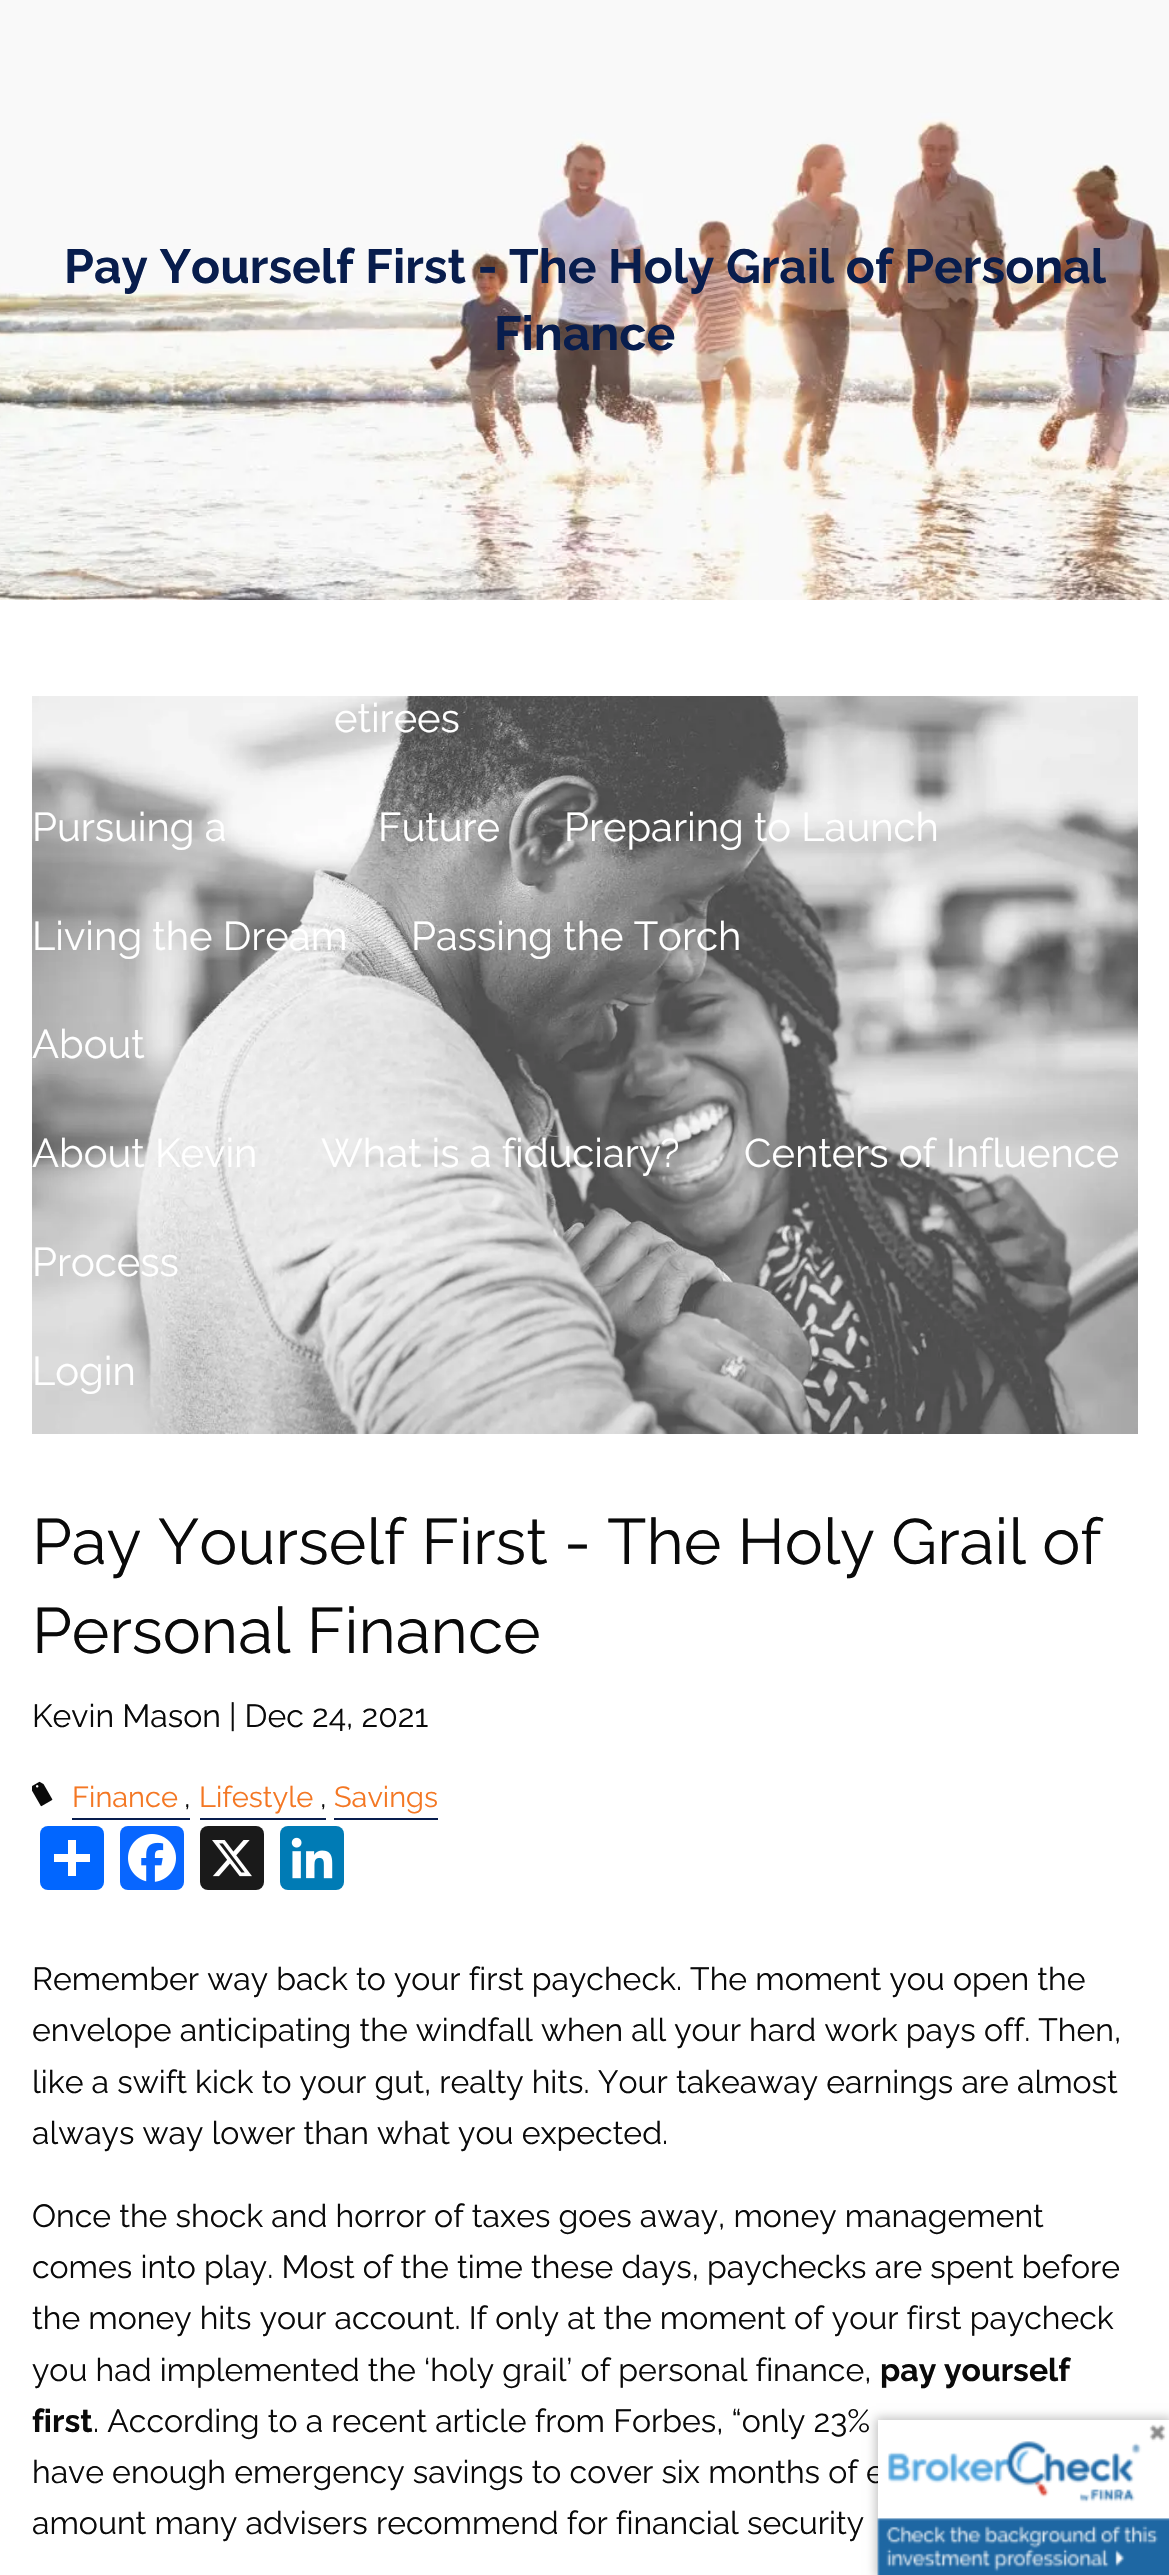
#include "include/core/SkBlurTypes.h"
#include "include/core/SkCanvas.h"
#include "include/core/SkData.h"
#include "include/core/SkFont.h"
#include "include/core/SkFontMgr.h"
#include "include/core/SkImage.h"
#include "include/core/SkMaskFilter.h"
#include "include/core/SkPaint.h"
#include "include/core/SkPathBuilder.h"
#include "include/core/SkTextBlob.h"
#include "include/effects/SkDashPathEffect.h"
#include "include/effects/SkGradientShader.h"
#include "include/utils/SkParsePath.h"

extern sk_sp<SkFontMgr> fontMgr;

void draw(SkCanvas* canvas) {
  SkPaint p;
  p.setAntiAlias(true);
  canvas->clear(SK_ColorWHITE);
  canvas->drawImageRect(SkImages::DeferredFromEncodedData(SkData::MakeFromFileName("images/1.png")), SkRect::MakeLTRB(0, 0, 1169, 600), SkSamplingOptions());
  canvas->drawImageRect(SkImages::DeferredFromEncodedData(SkData::MakeFromFileName("images/2.png")), SkRect::MakeLTRB(32, 696, 1138, 1434), SkSamplingOptions());
  canvas->drawImageRect(SkImages::DeferredFromEncodedData(SkData::MakeFromFileName("images/3.png")), SkRect::MakeLTRB(32, 1781, 53, 1807), SkSamplingOptions());
  p.setColor(SkColorSetRGB(8, 29, 77));
  canvas->drawRect(SkRect::MakeLTRB(72, 1818, 190, 1820), p);
  canvas->drawRect(SkRect::MakeLTRB(200, 1818, 326, 1820), p);
  canvas->drawRect(SkRect::MakeLTRB(334, 1818, 438, 1820), p);
  p.setColor(SkColorSetRGB(1, 102, 255));
  canvas->drawRoundRect(SkRect::MakeLTRB(40, 1826, 104, 1890), 8, 8, p);
  p.setColor(SK_ColorWHITE);
  canvas->drawRect(SkRect::MakeLTRB(68, 1840, 76, 1876), p);
  canvas->drawRect(SkRect::MakeLTRB(54, 1854, 90, 1862), p);
  p.setColor(SkColorSetRGB(8, 102, 255));
  canvas->drawRoundRect(SkRect::MakeLTRB(120, 1826, 184, 1890), 8, 8, p);
  canvas->drawImageRect(SkImages::DeferredFromEncodedData(SkData::MakeFromFileName("images/4.png")), SkRect::MakeLTRB(128, 1834, 176, 1882), SkSamplingOptions());
  p.setColor(SkColorSetRGB(26, 26, 26));
  canvas->drawRoundRect(SkRect::MakeLTRB(200, 1826, 264, 1890), 8, 8, p);
  canvas->drawImageRect(SkImages::DeferredFromEncodedData(SkData::MakeFromFileName("images/5.png")), SkRect::MakeLTRB(212, 1840, 252, 1877), SkSamplingOptions());
  p.setColor(SkColorSetRGB(0, 123, 181));
  canvas->drawRoundRect(SkRect::MakeLTRB(280, 1826, 344, 1890), 8, 8, p);
  canvas->drawImageRect(SkImages::DeferredFromEncodedData(SkData::MakeFromFileName("images/6.png")), SkRect::MakeLTRB(291, 1837, 333, 1879), SkSamplingOptions());
  SkFont font1(fontMgr->matchFamilyStyle("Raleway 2", SkFontStyle(100, SkFontStyle::kNormal_Width, SkFontStyle::kUpright_Slant)), 48);
  font1.setSubpixel(true);
  p.setColor(SkColorSetRGB(8, 29, 77));
  canvas->drawString("Pay Yourself First - The Holy Grail of Personal", 64, 283, font1, p);
  canvas->drawString("Finance", 494, 350, font1, p);
  SkFont font2(fontMgr->matchFamilyStyle("Raleway", SkFontStyle(100, SkFontStyle::kNormal_Width, SkFontStyle::kUpright_Slant)), 40);
  font2.setSubpixel(true);
  p.setColor(SK_ColorWHITE);
  canvas->drawString("etirees", 334, 732, font2, p);
  canvas->drawString("Pursuing a", 32, 841, font2, p);
  canvas->drawString("Future", 378, 841, font2, p);
  canvas->drawString("Preparing to Launch", 564, 841, font2, p);
  canvas->drawString("Living the Dream", 32, 950, font2, p);
  canvas->drawString("Passing the Torch", 411, 950, font2, p);
  canvas->drawString("About", 32, 1058, font2, p);
  canvas->drawString("About Kevin", 32, 1167, font2, p);
  canvas->drawString("What is a fiduciary?", 321, 1167, font2, p);
  canvas->drawString("Centers of Influence", 744, 1167, font2, p);
  canvas->drawString("Process", 32, 1276, font2, p);
  canvas->drawString("Login", 32, 1385, font2, p);
  SkFont font3(fontMgr->matchFamilyStyle("Raleway", SkFontStyle(100, SkFontStyle::kNormal_Width, SkFontStyle::kUpright_Slant)), 64);
  font3.setSubpixel(true);
  p.setColor(SkColorSetRGB(10, 10, 10));
  canvas->drawString("Pay Yourself First - The Holy Grail of", 32, 1564, font3, p);
  canvas->drawString("Personal Finance", 32, 1653, font3, p);
  SkFont font4(fontMgr->matchFamilyStyle("Raleway", SkFontStyle(100, SkFontStyle::kNormal_Width, SkFontStyle::kUpright_Slant)), 32);
  font4.setSubpixel(true);
  canvas->drawString("Kevin Mason | Dec 24, 2021", 32, 1727, font4, p);
  SkFont font5(fontMgr->matchFamilyStyle("Raleway", SkFontStyle(100, SkFontStyle::kNormal_Width, SkFontStyle::kUpright_Slant)), 29);
  font5.setSubpixel(true);
  p.setColor(SkColorSetRGB(244, 119, 35));
  canvas->drawString("Finance", 72, 1807, font5, p);
  p.setColor(SkColorSetRGB(10, 10, 10));
  canvas->drawString(",", 184, 1807, font5, p);
  p.setColor(SkColorSetRGB(244, 119, 35));
  canvas->drawString("Lifestyle", 199, 1807, font5, p);
  p.setColor(SkColorSetRGB(10, 10, 10));
  canvas->drawString(",", 320, 1807, font5, p);
  p.setColor(SkColorSetRGB(244, 119, 35));
  canvas->drawString("Savings", 334, 1807, font5, p);
  p.setColor(SkColorSetRGB(10, 10, 10));
  canvas->drawString("Remember way back to your first paycheck. The moment you open the", 32, 1990, font4, p);
  canvas->drawString("envelope anticipating the windfall when all your hard work pays off. Then,", 32, 2041, font4, p);
  canvas->drawString("like a swift kick to your gut, realty hits. Your takeaway earnings are almost", 32, 2093, font4, p);
  canvas->drawString("always way lower than what you expected.", 32, 2144, font4, p);
  canvas->drawString("Once the shock and horror of taxes goes away, money management", 32, 2227, font4, p);
  canvas->drawString("comes into play. Most of the time these days, paychecks are spent before", 32, 2278, font4, p);
  canvas->drawString("the money hits your account. If only at the moment of your first paycheck", 32, 2329, font4, p);
  canvas->drawString("you had implemented the ‘holy grail’ of personal finance,", 32, 2381, font4, p);
  SkFont font6(fontMgr->matchFamilyStyle("Raleway 2", SkFontStyle(100, SkFontStyle::kNormal_Width, SkFontStyle::kUpright_Slant)), 32);
  font6.setSubpixel(true);
  canvas->drawString("pay yourself", 880, 2381, font6, p);
  canvas->drawString("first", 32, 2432, font6, p);
  canvas->drawString(". According to a recent article from Forbes, “only 23%", 93, 2432, font4, p);
  canvas->drawString("have enough emergency savings to cover six months of e", 32, 2483, font4, p);
  canvas->drawString("amount many advisers recommend for financial security", 32, 2534, font4, p);
  p.setColor(SK_ColorWHITE);
  canvas->drawRect(SkRect::MakeLTRB(878, 2466, 884, 2483), p);
  canvas->save();
  canvas->clipPath(SkPathBuilder(SkPathFillType::kEvenOdd).moveTo(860, 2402).lineTo(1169, 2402).lineTo(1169, 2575).lineTo(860, 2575).close().moveTo(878, 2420).lineTo(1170, 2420).lineTo(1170, 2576).lineTo(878, 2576).close().detach(), true);
  p.setColor(SkColorSetARGB(64, 0, 0, 0));
  p.setMaskFilter(SkMaskFilter::MakeBlur(kNormal_SkBlurStyle, 5));
  canvas->drawRect(SkRect::MakeLTRB(876, 2418, 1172, 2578), p);
  p.setMaskFilter(nullptr);
  canvas->restore();
  canvas->drawImageRect(SkImages::DeferredFromEncodedData(SkData::MakeFromFileName("images/7.png")), SkRect::MakeLTRB(877, 2424, 1169, 2575), SkSamplingOptions());
}
